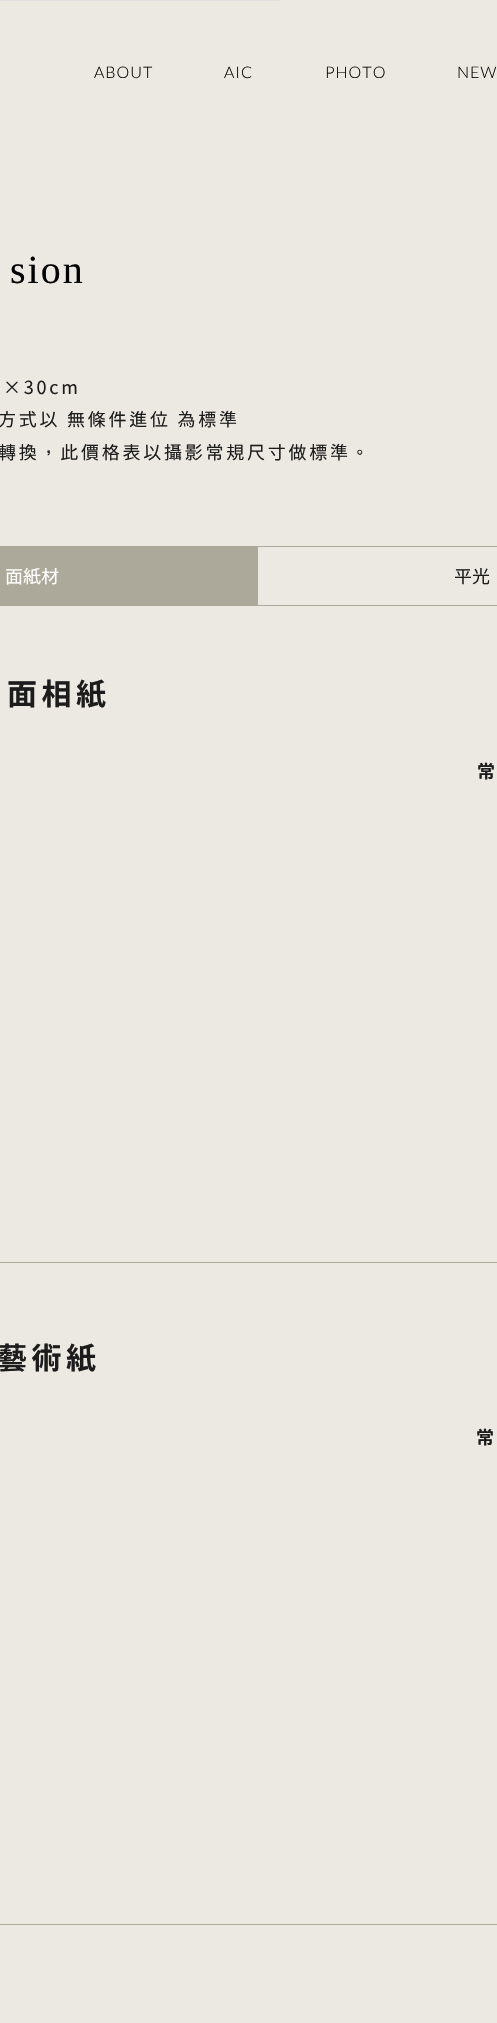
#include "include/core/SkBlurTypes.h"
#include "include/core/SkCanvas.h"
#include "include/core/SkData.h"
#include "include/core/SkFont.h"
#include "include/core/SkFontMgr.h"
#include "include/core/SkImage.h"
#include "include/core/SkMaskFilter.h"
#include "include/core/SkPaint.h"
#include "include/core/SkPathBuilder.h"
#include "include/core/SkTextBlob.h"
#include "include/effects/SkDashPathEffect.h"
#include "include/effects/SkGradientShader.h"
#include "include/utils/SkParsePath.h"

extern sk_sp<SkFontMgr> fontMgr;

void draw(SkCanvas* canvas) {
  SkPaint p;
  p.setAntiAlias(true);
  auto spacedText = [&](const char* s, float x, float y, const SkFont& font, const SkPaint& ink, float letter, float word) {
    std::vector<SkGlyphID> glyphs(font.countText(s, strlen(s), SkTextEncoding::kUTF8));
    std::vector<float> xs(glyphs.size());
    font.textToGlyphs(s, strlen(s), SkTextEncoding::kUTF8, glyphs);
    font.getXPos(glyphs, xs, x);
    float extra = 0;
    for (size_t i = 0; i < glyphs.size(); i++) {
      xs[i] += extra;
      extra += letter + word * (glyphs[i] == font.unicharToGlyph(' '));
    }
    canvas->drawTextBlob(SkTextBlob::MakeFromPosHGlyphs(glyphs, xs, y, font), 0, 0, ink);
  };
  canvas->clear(SkColorSetRGB(235, 233, 226));
  p.setColor(SkColorSetRGB(224, 224, 224));
  canvas->drawRect(SkRect::MakeLTRB(0, 0, 280, 1), p);
  p.setColor(SkColorSetRGB(173, 169, 154));
  canvas->drawRect(SkRect::MakeLTRB(0, 546, 257, 606), p);
  p.setStyle(SkPaint::kStroke_Style);
  p.setStrokeWidth(1);
  canvas->drawRect(SkRect::MakeLTRB(257.5f, 546.5f, 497.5f, 605.5f), p);
  p.setStyle(SkPaint::kFill_Style);
  canvas->drawRect(SkRect::MakeLTRB(0, 1262, 497, 1263), p);
  canvas->drawRect(SkRect::MakeLTRB(0, 1924, 497, 1925), p);
  SkFont font1(fontMgr->matchFamilyStyle("Lato", SkFontStyle(300, SkFontStyle::kNormal_Width, SkFontStyle::kUpright_Slant)), 16);
  font1.setSubpixel(true);
  p.setColor(SK_ColorBLACK);
  spacedText("ABOUT", 94, 78, font1, p, 1, 0);
  spacedText("AIC", 224, 78, font1, p, 1, 0);
  spacedText("PHOTO", 325, 78, font1, p, 1, 0);
  spacedText("NEW", 457, 78, font1, p, 1, 0);
  SkFont font2(fontMgr->matchFamilyStyle("Liberation Serif", SkFontStyle::Normal()), 40);
  font2.setSubpixel(true);
  spacedText("sion", 10, 283, font2, p, 2, 0);
  SkFont font3(fontMgr->matchFamilyStyle("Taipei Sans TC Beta", SkFontStyle::Normal()), 18);
  font3.setSubpixel(true);
  p.setColor(SkColorSetRGB(28, 28, 28));
  spacedText("×30cm", 3, 394, font3, p, 2.75f, 0);
  spacedText("方式以 無條件進位 為標準", -2, 426, font3, p, 2.75f, 0);
  spacedText("轉換，此價格表以攝影常規尺寸做標準。", -2, 459, font3, p, 2.75f, 0);
  p.setColor(SK_ColorWHITE);
  canvas->drawString("面紙材", 5, 583, font3, p);
  p.setColor(SkColorSetRGB(28, 28, 28));
  canvas->drawString("平光", 454, 583, font3, p);
  SkFont font4(fontMgr->matchFamilyStyle("Taipei Sans TC Beta", SkFontStyle::Bold()), 30);
  font4.setSubpixel(true);
  spacedText("面相紙", 7, 705, font4, p, 4.5f, 0);
  SkFont font5(fontMgr->matchFamilyStyle("Taipei Sans TC Beta", SkFontStyle::Bold()), 18);
  font5.setSubpixel(true);
  spacedText("常", 477, 778, font5, p, 2.75f, 0);
  spacedText("藝術紙", -3, 1369, font4, p, 4.5f, 0);
  spacedText("常", 476, 1444, font5, p, 2.75f, 0);
}
